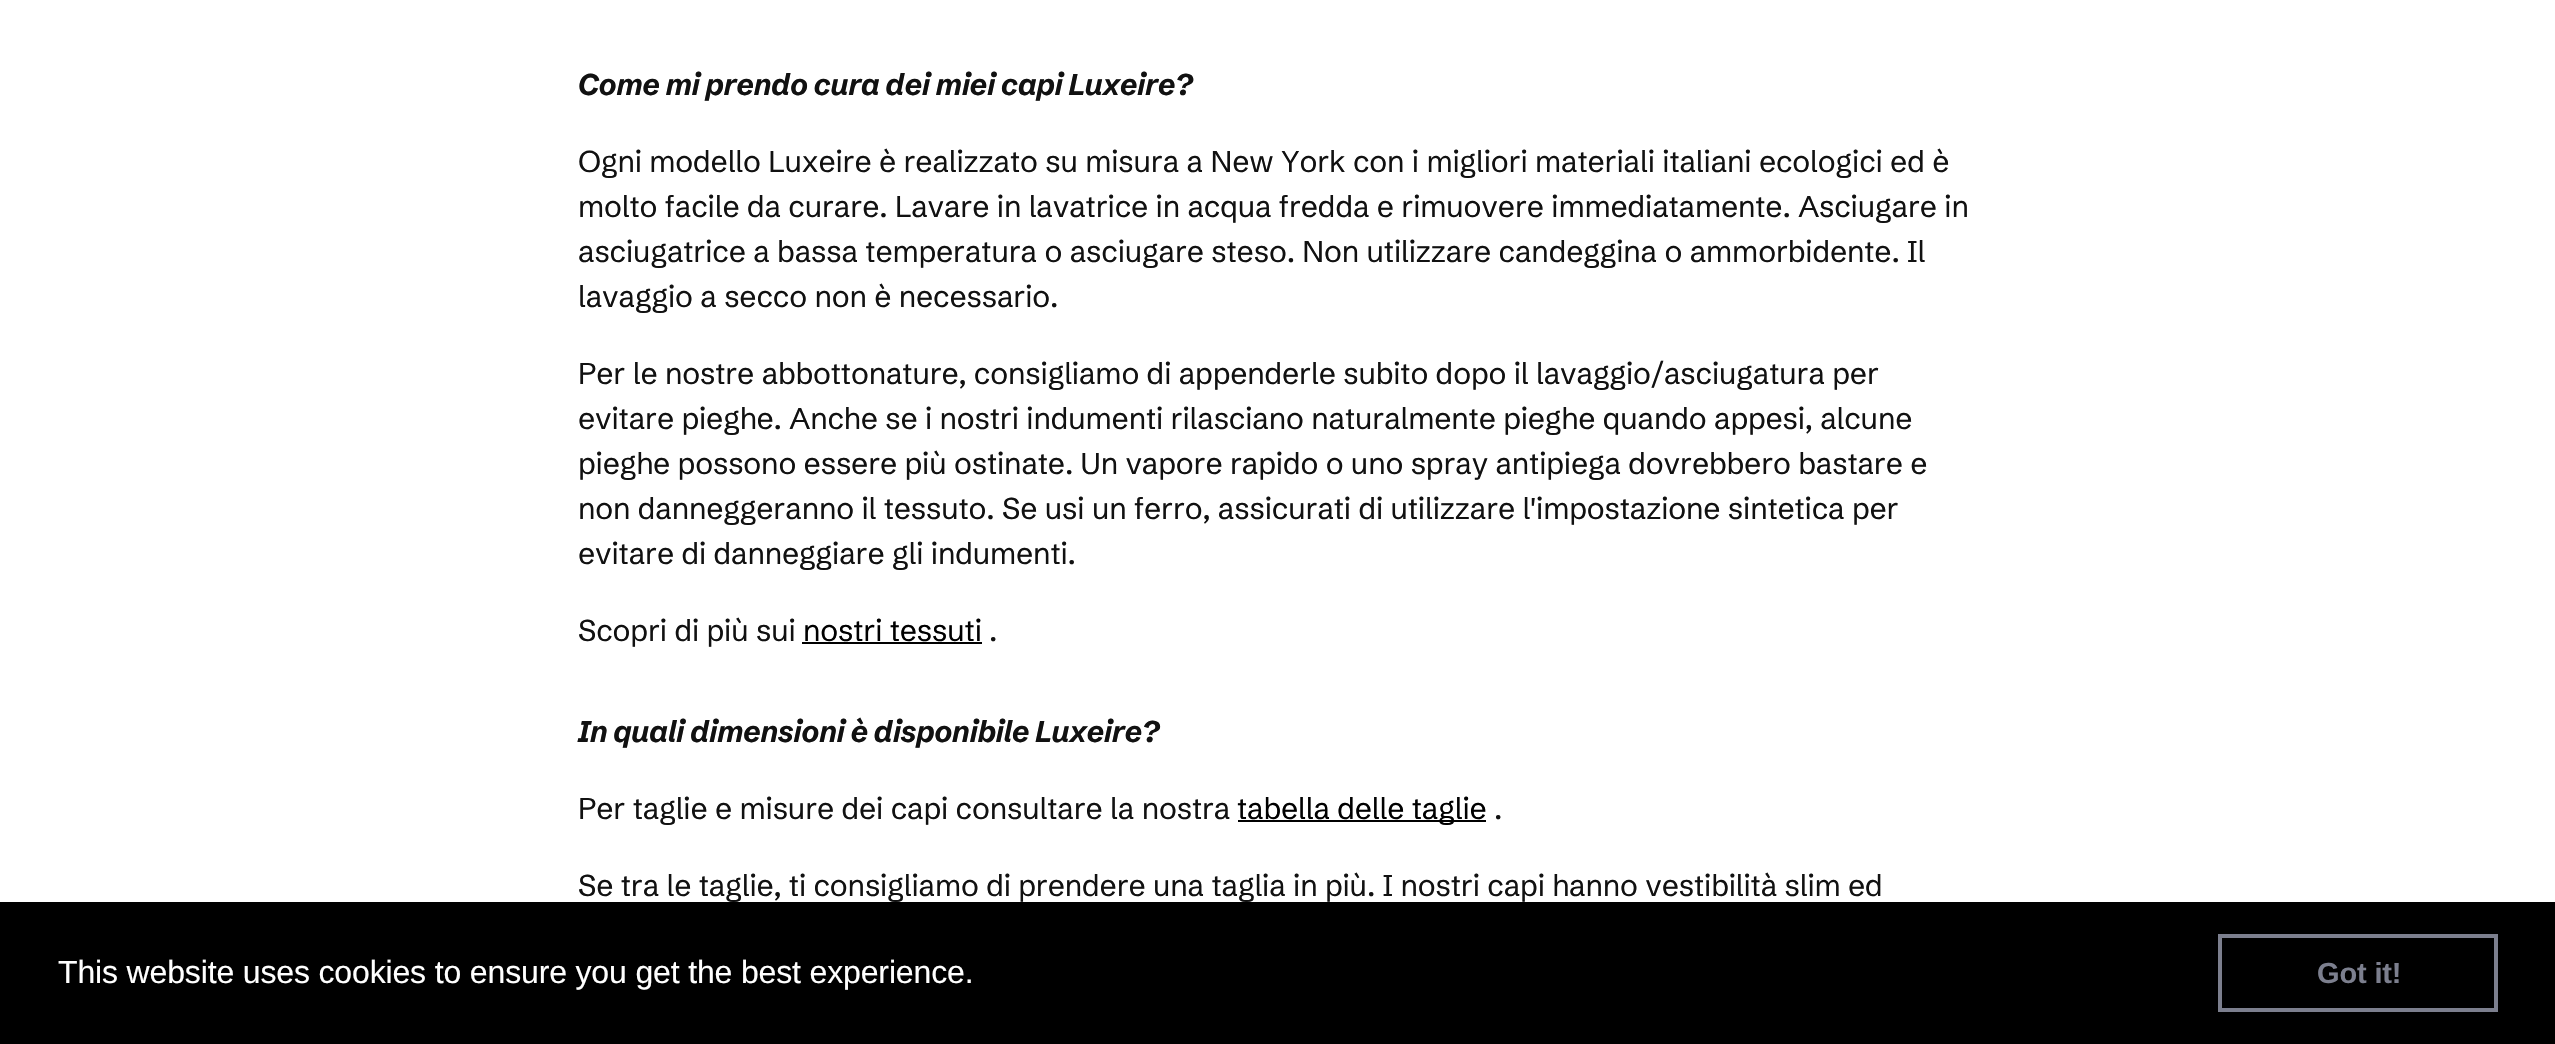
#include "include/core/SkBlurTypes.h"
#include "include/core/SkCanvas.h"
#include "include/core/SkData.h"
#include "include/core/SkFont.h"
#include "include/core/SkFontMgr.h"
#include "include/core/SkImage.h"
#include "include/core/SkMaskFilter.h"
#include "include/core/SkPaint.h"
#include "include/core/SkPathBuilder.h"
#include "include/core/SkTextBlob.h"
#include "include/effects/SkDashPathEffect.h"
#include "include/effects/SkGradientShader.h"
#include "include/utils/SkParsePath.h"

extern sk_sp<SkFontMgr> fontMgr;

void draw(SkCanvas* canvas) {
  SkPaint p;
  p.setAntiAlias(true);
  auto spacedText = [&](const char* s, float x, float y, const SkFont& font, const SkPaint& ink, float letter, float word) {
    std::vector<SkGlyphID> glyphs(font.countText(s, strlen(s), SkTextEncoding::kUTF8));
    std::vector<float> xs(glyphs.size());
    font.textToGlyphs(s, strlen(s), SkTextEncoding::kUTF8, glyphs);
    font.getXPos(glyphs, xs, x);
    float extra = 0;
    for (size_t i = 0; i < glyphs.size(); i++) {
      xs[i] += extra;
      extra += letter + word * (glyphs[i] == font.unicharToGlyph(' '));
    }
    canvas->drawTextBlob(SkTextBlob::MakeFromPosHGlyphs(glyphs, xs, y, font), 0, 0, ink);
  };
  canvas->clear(SK_ColorWHITE);
  p.setColor(SK_ColorBLACK);
  canvas->drawRect(SkRect::MakeLTRB(802, 642, 982, 644), p);
  canvas->drawRect(SkRect::MakeLTRB(1238, 820, 1486, 822), p);
  SkFont font1(fontMgr->matchFamilyStyle("Schibsted Grotesk", SkFontStyle::BoldItalic()), 30);
  font1.setSubpixel(true);
  p.setColor(SkColorSetRGB(17, 17, 17));
  spacedText("Come mi prendo cura dei miei capi Luxeire?", 578, 95, font1, p, -0.15f, 0);
  SkFont font2(fontMgr->matchFamilyStyle("Schibsted Grotesk", SkFontStyle::Normal()), 30);
  font2.setSubpixel(true);
  spacedText("Ogni modello Luxeire è realizzato su misura a New York con i migliori materiali italiani ecologici ed è", 578, 172, font2, p, -0.15f, 0);
  spacedText("molto facile da curare. Lavare in lavatrice in acqua fredda e rimuovere immediatamente. Asciugare in", 578, 217, font2, p, -0.15f, 0);
  spacedText("asciugatrice a bassa temperatura o asciugare steso. Non utilizzare candeggina o ammorbidente. Il", 578, 262, font2, p, -0.15f, 0);
  spacedText("lavaggio a secco non è necessario.", 578, 307, font2, p, -0.15f, 0);
  spacedText("Per le nostre abbottonature, consigliamo di appenderle subito dopo il lavaggio/asciugatura per", 578, 384, font2, p, -0.15f, 0);
  spacedText("evitare pieghe. Anche se i nostri indumenti rilasciano naturalmente pieghe quando appesi, alcune", 578, 429, font2, p, -0.15f, 0);
  spacedText("pieghe possono essere più ostinate. Un vapore rapido o uno spray antipiega dovrebbero bastare e", 578, 474, font2, p, -0.15f, 0);
  spacedText("non danneggeranno il tessuto. Se usi un ferro, assicurati di utilizzare l'impostazione sintetica per", 578, 519, font2, p, -0.15f, 0);
  spacedText("evitare di danneggiare gli indumenti.", 578, 564, font2, p, -0.15f, 0);
  spacedText("Scopri di più sui", 578, 641, font2, p, -0.15f, 0);
  p.setColor(SK_ColorBLACK);
  spacedText("nostri tessuti", 803, 641, font2, p, -0.15f, 0);
  p.setColor(SkColorSetRGB(17, 17, 17));
  spacedText(".", 989, 641, font2, p, -0.15f, 0);
  spacedText("In quali dimensioni è disponibile Luxeire?", 578, 742, font1, p, -0.15f, 0);
  spacedText("Per taglie e misure dei capi consultare la nostra", 578, 819, font2, p, -0.15f, 0);
  p.setColor(SK_ColorBLACK);
  spacedText("tabella delle taglie", 1237, 819, font2, p, -0.15f, 0);
  p.setColor(SkColorSetRGB(17, 17, 17));
  spacedText(".", 1494, 819, font2, p, -0.15f, 0);
  spacedText("Se tra le taglie, ti consigliamo di prendere una taglia in più. I nostri capi hanno vestibilità slim ed", 578, 896, font2, p, -0.15f, 0);
  p.setColor(SK_ColorBLACK);
  canvas->drawRect(SkRect::MakeLTRB(0, 902, 2555, 1044), p);
  SkFont font3(fontMgr->matchFamilyStyle("Liberation Sans", SkFontStyle::Normal()), 32);
  font3.setSubpixel(true);
  p.setColor(SK_ColorWHITE);
  spacedText("This website uses cookies to ensure you get the best experience.", 58, 983, font3, p, -0.15f, 0);
  p.setStyle(SkPaint::kStroke_Style);
  p.setStrokeWidth(4);
  p.setColor(SkColorSetRGB(124, 127, 142));
  canvas->drawRect(SkRect::MakeLTRB(2220, 936, 2496, 1010), p);
  SkFont font4(fontMgr->matchFamilyStyle("Liberation Sans", SkFontStyle::Bold()), 29);
  font4.setSubpixel(true);
  p.setStyle(SkPaint::kFill_Style);
  spacedText("Got it!", 2317, 983, font4, p, -0.15f, 0);
}
